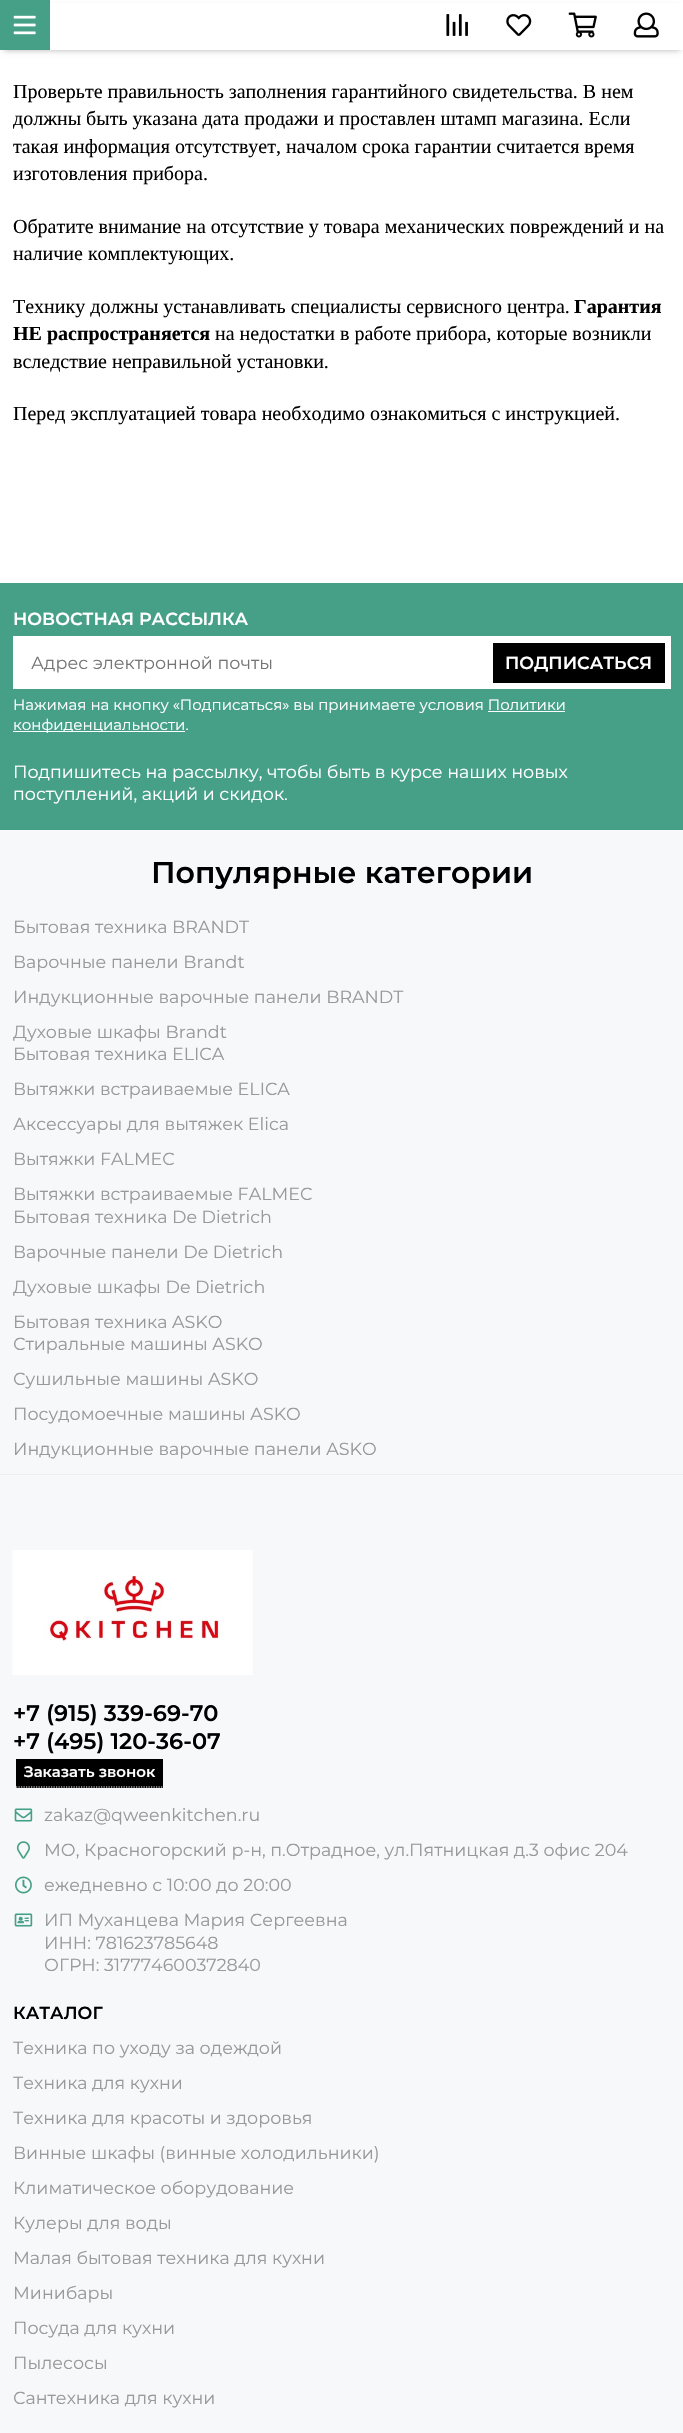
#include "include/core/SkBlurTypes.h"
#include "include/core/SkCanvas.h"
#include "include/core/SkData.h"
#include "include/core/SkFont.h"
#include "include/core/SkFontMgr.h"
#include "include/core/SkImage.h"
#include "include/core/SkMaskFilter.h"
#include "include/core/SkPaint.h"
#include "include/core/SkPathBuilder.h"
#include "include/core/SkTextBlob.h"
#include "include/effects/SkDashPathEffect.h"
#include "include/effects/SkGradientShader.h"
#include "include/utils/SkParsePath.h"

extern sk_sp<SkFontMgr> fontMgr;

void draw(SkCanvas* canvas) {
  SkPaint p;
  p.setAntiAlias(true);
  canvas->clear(SK_ColorWHITE);
  p.setColor(SkColorSetARGB(77, 0, 0, 0));
  p.setMaskFilter(SkMaskFilter::MakeBlur(kNormal_SkBlurStyle, 3));
  canvas->drawRect(SkRect::MakeLTRB(4, 8, 680, 50), p);
  p.setMaskFilter(nullptr);
  p.setColor(SK_ColorWHITE);
  canvas->drawRect(SkRect::MakeLTRB(50, 3, 683, 50), p);
  p.setColor(SkColorSetRGB(70, 159, 135));
  canvas->drawRect(SkRect::MakeLTRB(0, 0, 50, 50), p);
  canvas->drawImageRect(SkImages::DeferredFromEncodedData(SkData::MakeFromFileName("images/1.png")), SkRect::MakeLTRB(13, 15, 36, 35), SkSamplingOptions());
  canvas->drawImageRect(SkImages::DeferredFromEncodedData(SkData::MakeFromFileName("images/2.png")), SkRect::MakeLTRB(446, 14, 468, 36), SkSamplingOptions());
  canvas->drawImageRect(SkImages::DeferredFromEncodedData(SkData::MakeFromFileName("images/3.png")), SkRect::MakeLTRB(506, 14, 532, 36), SkSamplingOptions());
  canvas->drawImageRect(SkImages::DeferredFromEncodedData(SkData::MakeFromFileName("images/4.png")), SkRect::MakeLTRB(568, 12, 597, 38), SkSamplingOptions());
  canvas->drawImageRect(SkImages::DeferredFromEncodedData(SkData::MakeFromFileName("images/5.png")), SkRect::MakeLTRB(633, 12, 659, 38), SkSamplingOptions());
  canvas->drawRect(SkRect::MakeLTRB(0, 583, 683, 830), p);
  p.setColor(SK_ColorWHITE);
  canvas->drawRect(SkRect::MakeLTRB(13, 636, 671, 689), p);
  p.setColor(SK_ColorBLACK);
  canvas->drawRect(SkRect::MakeLTRB(493, 643, 665, 683), p);
  p.setColor(SK_ColorWHITE);
  canvas->drawRect(SkRect::MakeLTRB(488, 711, 565, 712), p);
  canvas->drawRect(SkRect::MakeLTRB(13, 731, 185, 732), p);
  p.setColor(SkColorSetRGB(247, 248, 250));
  canvas->drawRect(SkRect::MakeLTRB(0, 830, 683, 2433), p);
  p.setColor(SkColorSetRGB(238, 238, 238));
  canvas->drawRect(SkRect::MakeLTRB(0, 1474, 683, 1475), p);
  canvas->drawImageRect(SkImages::DeferredFromEncodedData(SkData::MakeFromFileName("images/6.png")), SkRect::MakeLTRB(12, 1550, 253, 1675), SkSamplingOptions());
  p.setColor(SK_ColorBLACK);
  canvas->drawRect(SkRect::MakeLTRB(16, 1759, 163, 1788), p);
  p.setStyle(SkPaint::kStroke_Style);
  p.setStrokeWidth(1.2f);
  p.setColor(SK_ColorWHITE);
  p.setPathEffect(SkDashPathEffect::Make({{1.25f, 1.25f}}, 0));
  canvas->drawPath(SkPathBuilder().moveTo(16, 1787).lineTo(162.5f, 1787).detach(), p);
  p.setPathEffect(nullptr);
  canvas->drawImageRect(SkImages::DeferredFromEncodedData(SkData::MakeFromFileName("images/7.png")), SkRect::MakeLTRB(14, 1808, 33, 1822), SkSamplingOptions());
  canvas->drawImageRect(SkImages::DeferredFromEncodedData(SkData::MakeFromFileName("images/8.png")), SkRect::MakeLTRB(16, 1841, 30, 1859), SkSamplingOptions());
  canvas->drawImageRect(SkImages::DeferredFromEncodedData(SkData::MakeFromFileName("images/9.png")), SkRect::MakeLTRB(15, 1876, 32, 1894), SkSamplingOptions());
  canvas->drawImageRect(SkImages::DeferredFromEncodedData(SkData::MakeFromFileName("images/10.png")), SkRect::MakeLTRB(14, 1913, 33, 1927), SkSamplingOptions());
  SkFont font1(fontMgr->matchFamilyStyle("Liberation Serif", SkFontStyle::Normal()), 20);
  font1.setSubpixel(true);
  p.setStyle(SkPaint::kFill_Style);
  p.setColor(SK_ColorBLACK);
  canvas->drawString("Проверьте правильность заполнения гарантийного свидетельства. В нем", 13, 98, font1, p);
  canvas->drawString("должны быть указана дата продажи и проставлен штамп магазина. Если", 13, 125, font1, p);
  canvas->drawString("такая информация отсутствует, началом срока гарантии считается время", 13, 153, font1, p);
  canvas->drawString("изготовления прибора.", 13, 180, font1, p);
  canvas->drawString("Обратите внимание на отсутствие у товара механических повреждений и на", 13, 233, font1, p);
  canvas->drawString("наличие комплектующих.", 13, 260, font1, p);
  canvas->drawString("Технику должны устанавливать специалисты сервисного центра.", 13, 313, font1, p);
  SkFont font2(fontMgr->matchFamilyStyle("Liberation Serif", SkFontStyle::Bold()), 20);
  font2.setSubpixel(true);
  canvas->drawString("Гарантия", 574, 313, font2, p);
  canvas->drawString("НЕ распространяется", 13, 340, font2, p);
  canvas->drawString("на недостатки в работе прибора, которые возникли", 215, 340, font1, p);
  canvas->drawString("вследствие неправильной установки.", 13, 368, font1, p);
  canvas->drawString("Перед эксплуатацией товара необходимо ознакомиться с инструкцией.", 13, 420, font1, p);
  SkFont font3(fontMgr->matchFamilyStyle("Montserrat", SkFontStyle(600, SkFontStyle::kNormal_Width, SkFontStyle::kUpright_Slant)), 17.5f);
  font3.setSubpixel(true);
  p.setColor(SK_ColorWHITE);
  canvas->drawString("НОВОСТНАЯ РАССЫЛКА", 13, 625, font3, p);
  SkFont font4(fontMgr->matchFamilyStyle("Montserrat", SkFontStyle::Normal()), 17.5f);
  font4.setSubpixel(true);
  p.setColor(SkColorSetRGB(117, 117, 117));
  canvas->drawString("Адрес электронной почты", 31, 669, font4, p);
  p.setColor(SK_ColorWHITE);
  canvas->drawString("ПОДПИСАТЬСЯ", 505, 669, font3, p);
  SkFont font5(fontMgr->matchFamilyStyle("Montserrat", SkFontStyle::Normal()), 15);
  font5.setSubpixel(true);
  canvas->drawString("Нажимая на кнопку «Подписаться» вы принимаете условия Политики", 13, 710, font5, p);
  canvas->drawString("конфиденциальности.", 13, 730, font5, p);
  canvas->drawString("Подпишитесь на рассылку, чтобы быть в курсе наших новых", 13, 778, font4, p);
  canvas->drawString("поступлений, акций и скидок.", 13, 800, font4, p);
  SkFont font6(fontMgr->matchFamilyStyle("Montserrat", SkFontStyle(600, SkFontStyle::kNormal_Width, SkFontStyle::kUpright_Slant)), 30);
  font6.setSubpixel(true);
  p.setColor(SK_ColorBLACK);
  canvas->drawString("Популярные категории", 151, 883, font6, p);
  p.setColor(SkColorSetRGB(153, 153, 153));
  canvas->drawString("Бытовая техника BRANDT", 13, 933, font4, p);
  canvas->drawString("Варочные панели Brandt", 13, 968, font4, p);
  canvas->drawString("Индукционные варочные панели BRANDT", 13, 1003, font4, p);
  canvas->drawString("Духовые шкафы Brandt", 13, 1038, font4, p);
  canvas->drawString("Бытовая техника ELICA", 13, 1060, font4, p);
  canvas->drawString("Вытяжки встраиваемые ELICA", 13, 1095, font4, p);
  canvas->drawString("Аксессуары для вытяжек Elica", 13, 1130, font4, p);
  canvas->drawString("Вытяжки FALMEC", 13, 1165, font4, p);
  canvas->drawString("Вытяжки встраиваемые FALMEC", 13, 1200, font4, p);
  canvas->drawString("Бытовая техника De Dietrich", 13, 1223, font4, p);
  canvas->drawString("Варочные панели De Dietrich", 13, 1258, font4, p);
  canvas->drawString("Духовые шкафы De Dietrich", 13, 1293, font4, p);
  canvas->drawString("Бытовая техника ASKO", 13, 1328, font4, p);
  canvas->drawString("Стиральные машины ASKO", 13, 1350, font4, p);
  canvas->drawString("Сушильные машины ASKO", 13, 1385, font4, p);
  canvas->drawString("Посудомоечные машины ASKO", 13, 1420, font4, p);
  canvas->drawString("Индукционные варочные панели ASKO", 13, 1455, font4, p);
  SkFont font7(fontMgr->matchFamilyStyle("Montserrat", SkFontStyle(600, SkFontStyle::kNormal_Width, SkFontStyle::kUpright_Slant)), 22.5f);
  font7.setSubpixel(true);
  p.setColor(SK_ColorBLACK);
  canvas->drawString("+7 (915) 339-69-70", 13, 1721, font7, p);
  canvas->drawString("+7 (495) 120-36-07", 13, 1749, font7, p);
  SkFont font8(fontMgr->matchFamilyStyle("Montserrat", SkFontStyle(600, SkFontStyle::kNormal_Width, SkFontStyle::kUpright_Slant)), 15);
  font8.setSubpixel(true);
  p.setColor(SK_ColorWHITE);
  canvas->drawString("Заказать звонок", 24, 1777, font8, p);
  p.setColor(SkColorSetRGB(153, 153, 153));
  canvas->drawString("zakaz@qweenkitchen.ru", 44, 1821, font4, p);
  canvas->drawString("МО, Красногорский р-н, п.Отрадное, ул.Пятницкая д.3 офис 204", 44, 1856, font4, p);
  canvas->drawString("ежедневно с 10:00 до 20:00", 44, 1891, font4, p);
  canvas->drawString("ИП Муханцева Мария Сергеевна", 44, 1926, font4, p);
  canvas->drawString("ИНН: 781623785648", 44, 1949, font4, p);
  canvas->drawString("ОГРН: 317774600372840", 44, 1971, font4, p);
  p.setColor(SK_ColorBLACK);
  canvas->drawString("КАТАЛОГ", 13, 2019, font3, p);
  p.setColor(SkColorSetRGB(153, 153, 153));
  canvas->drawString("Техника по уходу за одеждой", 13, 2054, font4, p);
  canvas->drawString("Техника для кухни", 13, 2089, font4, p);
  canvas->drawString("Техника для красоты и здоровья", 13, 2124, font4, p);
  canvas->drawString("Винные шкафы (винные холодильники)", 13, 2159, font4, p);
  canvas->drawString("Климатическое оборудование", 13, 2194, font4, p);
  canvas->drawString("Кулеры для воды", 13, 2229, font4, p);
  canvas->drawString("Малая бытовая техника для кухни", 13, 2264, font4, p);
  canvas->drawString("Минибары", 13, 2299, font4, p);
  canvas->drawString("Посуда для кухни", 13, 2334, font4, p);
  canvas->drawString("Пылесосы", 13, 2369, font4, p);
  canvas->drawString("Сантехника для кухни", 13, 2404, font4, p);
}
